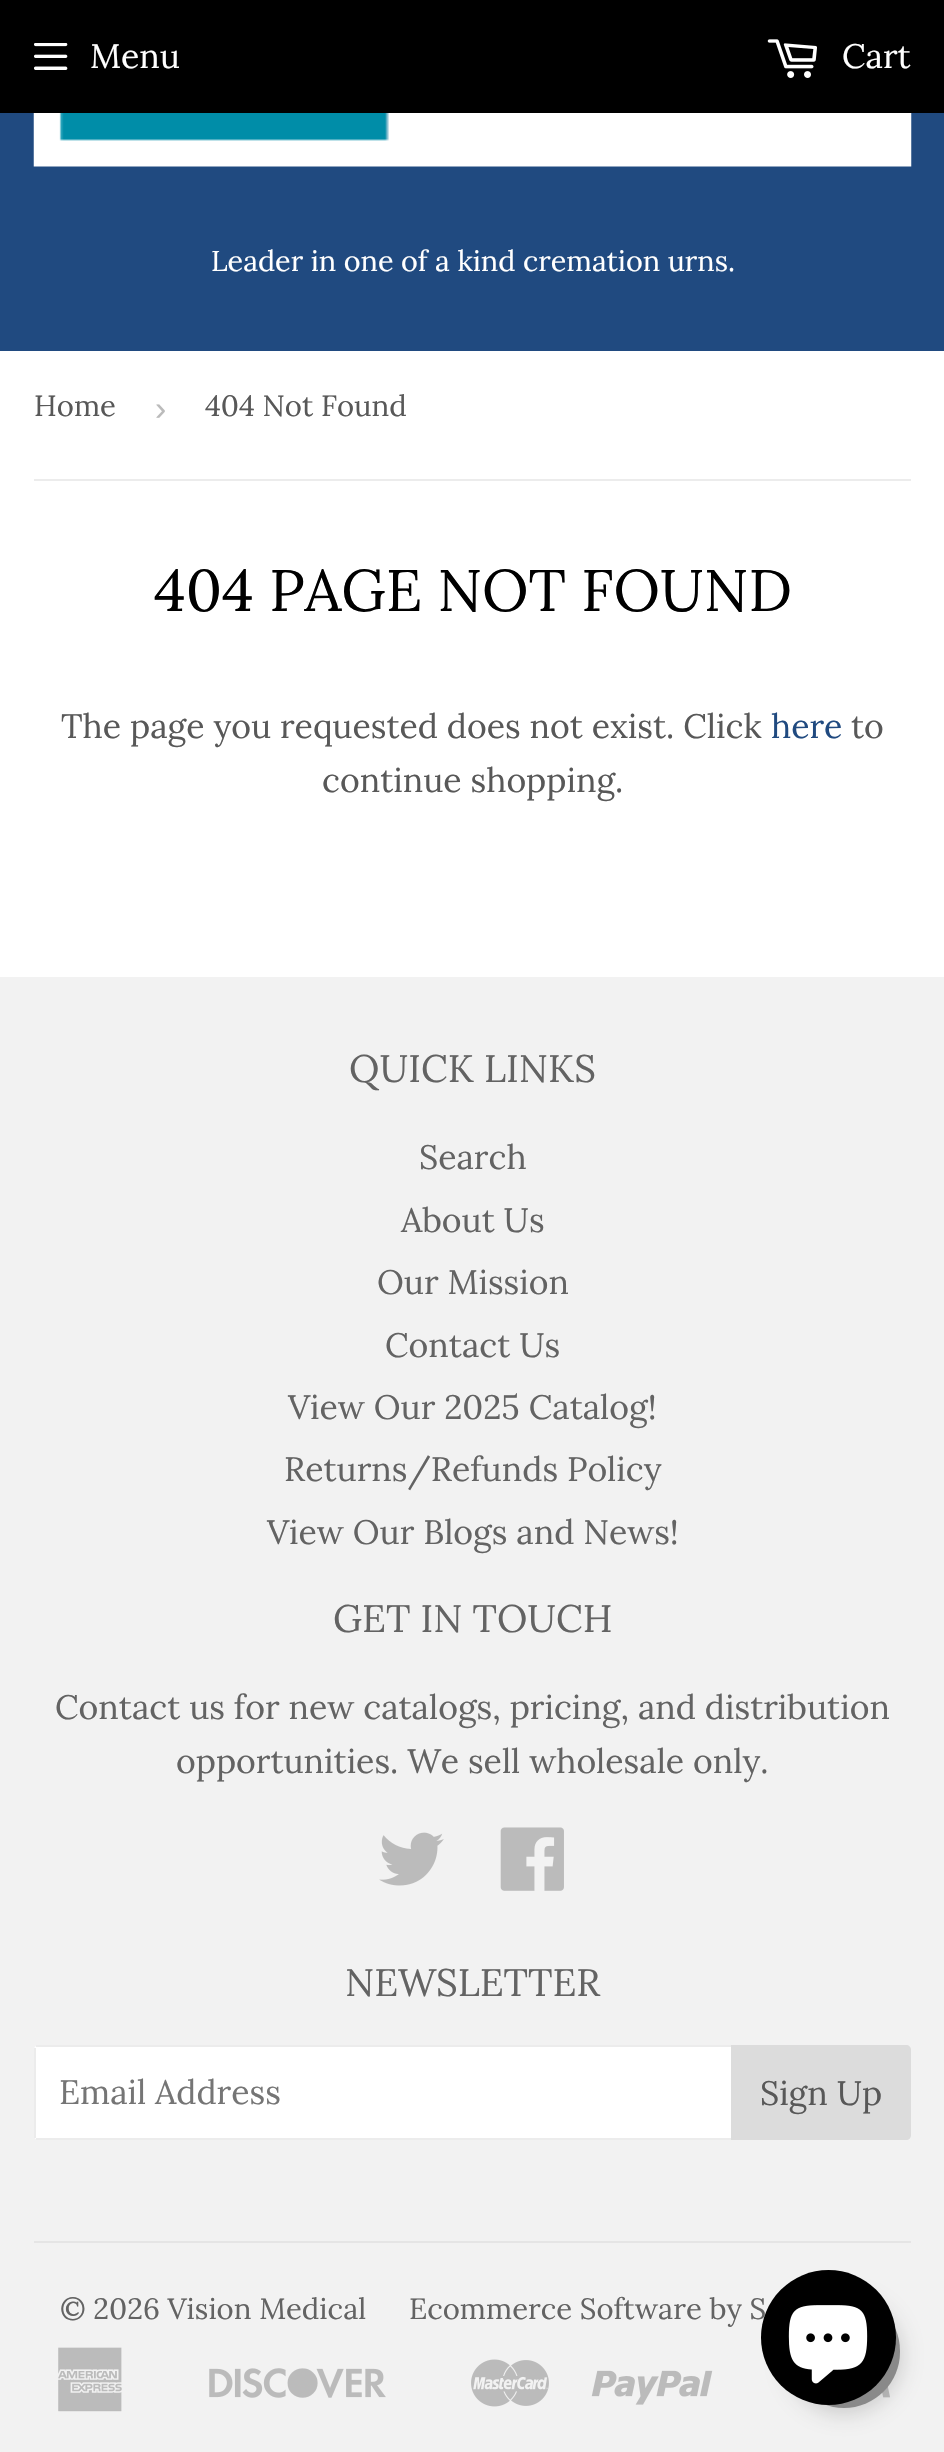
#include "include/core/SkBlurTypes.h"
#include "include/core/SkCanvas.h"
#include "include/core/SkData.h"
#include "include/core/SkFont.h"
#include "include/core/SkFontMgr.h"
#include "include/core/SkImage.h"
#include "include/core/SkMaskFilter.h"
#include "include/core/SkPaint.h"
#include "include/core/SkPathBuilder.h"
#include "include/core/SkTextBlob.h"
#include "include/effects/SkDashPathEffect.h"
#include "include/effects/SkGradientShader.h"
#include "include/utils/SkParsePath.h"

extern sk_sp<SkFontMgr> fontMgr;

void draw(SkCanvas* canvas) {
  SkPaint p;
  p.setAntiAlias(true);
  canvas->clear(SK_ColorWHITE);
  p.setColor(SK_ColorBLACK);
  canvas->drawRect(SkRect::MakeLTRB(0, 0, 944, 113), p);
  canvas->drawImageRect(SkImages::DeferredFromEncodedData(SkData::MakeFromFileName("images/1.png")), SkRect::MakeLTRB(34, 43, 68, 70), SkSamplingOptions());
  canvas->drawImageRect(SkImages::DeferredFromEncodedData(SkData::MakeFromFileName("images/2.png")), SkRect::MakeLTRB(767, 39, 817, 78), SkSamplingOptions());
  p.setColor(SkColorSetRGB(32, 74, 128));
  canvas->drawRect(SkRect::MakeLTRB(0, 113, 944, 351), p);
  canvas->drawImageRect(SkImages::DeferredFromEncodedData(SkData::MakeFromFileName("images/3.png")), SkRect::MakeLTRB(33, 113, 912, 167), SkSamplingOptions());
  p.setColor(SkColorSetRGB(236, 236, 236));
  canvas->drawRect(SkRect::MakeLTRB(34, 479, 911, 481), p);
  p.setColor(SkColorSetRGB(242, 242, 242));
  canvas->drawRect(SkRect::MakeLTRB(0, 977, 944, 2452), p);
  canvas->drawImageRect(SkImages::DeferredFromEncodedData(SkData::MakeFromFileName("images/4.png")), SkRect::MakeLTRB(379, 1832, 444, 1886), SkSamplingOptions());
  canvas->drawImageRect(SkImages::DeferredFromEncodedData(SkData::MakeFromFileName("images/5.png")), SkRect::MakeLTRB(500, 1827, 564, 1891), SkSamplingOptions());
  p.setColor(SK_ColorWHITE);
  canvas->drawPath(SkPathBuilder().moveTo(39, 2045).lineTo(731, 2045).lineTo(731, 2140).lineTo(39, 2140).cubicTo(36, 2140, 34, 2138, 34, 2135).lineTo(34, 2050).cubicTo(34, 2047, 36, 2045, 39, 2045).close().detach(), p);
  p.setColor(SkColorSetRGB(236, 236, 236));
  canvas->drawRect(SkRect::MakeLTRB(36, 2045, 731, 2047), p);
  canvas->drawRect(SkRect::MakeLTRB(36, 2138, 731, 2140), p);
  canvas->drawRect(SkRect::MakeLTRB(34, 2048, 36, 2138), p);
  p.setColor(SkColorSetRGB(220, 220, 220));
  canvas->drawPath(SkPathBuilder().moveTo(731, 2045).lineTo(906, 2045).cubicTo(909, 2045, 911, 2047, 911, 2050).lineTo(911, 2135).cubicTo(911, 2138, 909, 2140, 906, 2140).lineTo(731, 2140).close().detach(), p);
  p.setColor(SkColorSetRGB(229, 229, 229));
  canvas->drawRect(SkRect::MakeLTRB(34, 2241, 911, 2243), p);
  canvas->drawImageRect(SkImages::DeferredFromEncodedData(SkData::MakeFromFileName("images/6.png")), SkRect::MakeLTRB(58, 2347, 122, 2412), SkSamplingOptions());
  canvas->drawImageRect(SkImages::DeferredFromEncodedData(SkData::MakeFromFileName("images/7.png")), SkRect::MakeLTRB(209, 2368, 386, 2398), SkSamplingOptions());
  canvas->drawImageRect(SkImages::DeferredFromEncodedData(SkData::MakeFromFileName("images/8.png")), SkRect::MakeLTRB(471, 2359, 549, 2407), SkSamplingOptions());
  canvas->drawImageRect(SkImages::DeferredFromEncodedData(SkData::MakeFromFileName("images/9.png")), SkRect::MakeLTRB(591, 2370, 713, 2405), SkSamplingOptions());
  canvas->drawImageRect(SkImages::DeferredFromEncodedData(SkData::MakeFromFileName("images/10.png")), SkRect::MakeLTRB(881, 2386, 890, 2398), SkSamplingOptions());
  p.setColor(SkColorSetARGB(102, 128, 128, 128));
  p.setMaskFilter(SkMaskFilter::MakeBlur(kNormal_SkBlurStyle, 12.5f));
  canvas->drawRoundRect(SkRect::MakeLTRB(788, 2300, 900, 2412), 56, 56, p);
  p.setMaskFilter(nullptr);
  p.setColor(SkColorSetRGB(137, 137, 137));
  canvas->drawRoundRect(SkRect::MakeLTRB(788, 2295, 900, 2408), 56, 56, p);
  SkFont font1(fontMgr->matchFamilyStyle("Lora", SkFontStyle::Normal()), 33.75f);
  font1.setSubpixel(true);
  p.setColor(SK_ColorWHITE);
  canvas->drawString("Menu", 90, 68, font1, p);
  canvas->drawString("Cart", 842, 68, font1, p);
  SkFont font2(fontMgr->matchFamilyStyle("Lora", SkFontStyle::Normal()), 28.7f);
  font2.setSubpixel(true);
  canvas->drawString("Leader in one of a kind cremation urns.", 211, 271, font2, p);
  SkFont font3(fontMgr->matchFamilyStyle("Lora", SkFontStyle::Normal()), 29.25f);
  font3.setSubpixel(true);
  p.setColor(SkColorSetRGB(88, 88, 88));
  canvas->drawString("Home", 34, 416, font3, p);
  SkFont font4(fontMgr->matchFamilyStyle("Liberation Sans", SkFontStyle::Normal()), 33.75f);
  font4.setSubpixel(true);
  p.setColor(SkColorSetRGB(187, 187, 187));
  canvas->drawString("›", 155, 420, font4, p);
  p.setColor(SkColorSetRGB(88, 88, 88));
  canvas->drawString("404 Not Found", 205, 416, font3, p);
  SkFont font5(fontMgr->matchFamilyStyle("Lora", SkFontStyle::Normal()), 58.5f);
  font5.setSubpixel(true);
  p.setColor(SK_ColorBLACK);
  canvas->drawString("404 PAGE NOT FOUND", 154, 611, font5, p);
  p.setColor(SkColorSetRGB(88, 88, 88));
  canvas->drawString("The page you requested does not exist. Click", 61, 738, font1, p);
  p.setColor(SkColorSetRGB(32, 74, 128));
  canvas->drawString("here", 771, 738, font1, p);
  p.setColor(SkColorSetRGB(88, 88, 88));
  canvas->drawString("to", 851, 738, font1, p);
  canvas->drawString("continue shopping.", 322, 792, font1, p);
  SkFont font6(fontMgr->matchFamilyStyle("Lora", SkFontStyle::Normal()), 38.25f);
  font6.setSubpixel(true);
  p.setColor(SkColorSetRGB(99, 99, 99));
  canvas->drawString("QUICK LINKS", 349, 1082, font6, p);
  canvas->drawString("Search", 419, 1169, font1, p);
  canvas->drawString("About Us", 401, 1232, font1, p);
  canvas->drawString("Our Mission", 377, 1294, font1, p);
  canvas->drawString("Contact Us", 385, 1357, font1, p);
  canvas->drawString("View Our 2025 Catalog!", 288, 1419, font1, p);
  canvas->drawString("Returns/Refunds Policy", 284, 1481, font1, p);
  canvas->drawString("View Our Blogs and News!", 267, 1544, font1, p);
  canvas->drawString("GET IN TOUCH", 333, 1632, font6, p);
  canvas->drawString("Contact us for new catalogs, pricing, and distribution", 55, 1719, font1, p);
  canvas->drawString("opportunities. We sell wholesale only.", 176, 1773, font1, p);
  canvas->drawString("NEWSLETTER", 345, 1996, font6, p);
  p.setColor(SkColorSetRGB(117, 117, 117));
  canvas->drawString("Email Address", 59, 2104, font1, p);
  p.setColor(SkColorSetRGB(88, 88, 88));
  canvas->drawString("Sign Up", 760, 2105, font1, p);
  p.setColor(SkColorSetRGB(99, 99, 99));
  canvas->drawString("© 2026 Vision Medical", 60, 2319, font3, p);
  canvas->drawString("Ecommerce Software by S", 409, 2319, font3, p);
  p.setColor(SK_ColorBLACK);
  canvas->drawCircle(828.5f, 2337.5f, 67.5f, p);
  canvas->drawImageRect(SkImages::DeferredFromEncodedData(SkData::MakeFromFileName("images/11.png")), SkRect::MakeLTRB(788, 2305, 868, 2384), SkSamplingOptions());
}
